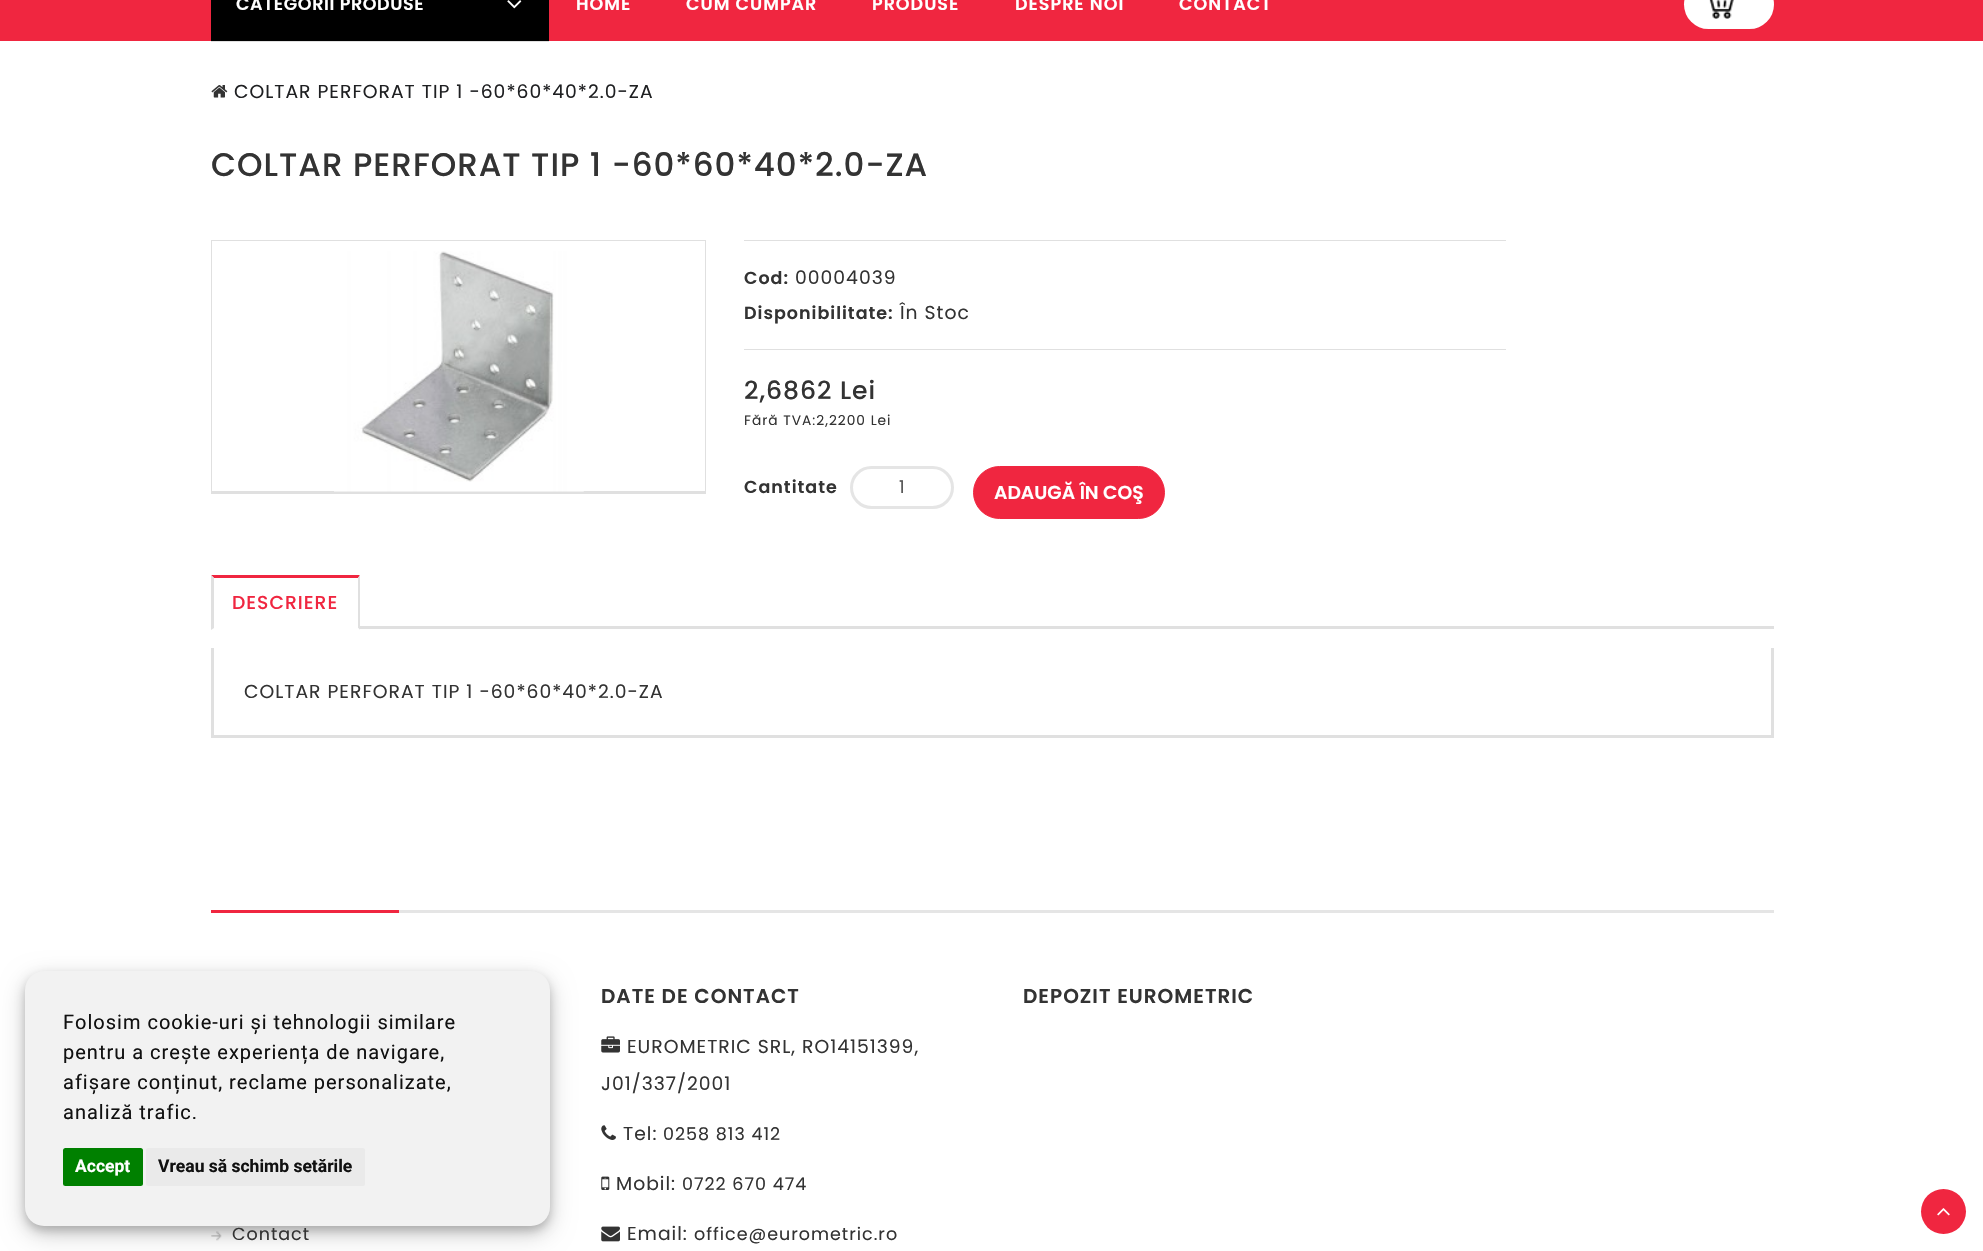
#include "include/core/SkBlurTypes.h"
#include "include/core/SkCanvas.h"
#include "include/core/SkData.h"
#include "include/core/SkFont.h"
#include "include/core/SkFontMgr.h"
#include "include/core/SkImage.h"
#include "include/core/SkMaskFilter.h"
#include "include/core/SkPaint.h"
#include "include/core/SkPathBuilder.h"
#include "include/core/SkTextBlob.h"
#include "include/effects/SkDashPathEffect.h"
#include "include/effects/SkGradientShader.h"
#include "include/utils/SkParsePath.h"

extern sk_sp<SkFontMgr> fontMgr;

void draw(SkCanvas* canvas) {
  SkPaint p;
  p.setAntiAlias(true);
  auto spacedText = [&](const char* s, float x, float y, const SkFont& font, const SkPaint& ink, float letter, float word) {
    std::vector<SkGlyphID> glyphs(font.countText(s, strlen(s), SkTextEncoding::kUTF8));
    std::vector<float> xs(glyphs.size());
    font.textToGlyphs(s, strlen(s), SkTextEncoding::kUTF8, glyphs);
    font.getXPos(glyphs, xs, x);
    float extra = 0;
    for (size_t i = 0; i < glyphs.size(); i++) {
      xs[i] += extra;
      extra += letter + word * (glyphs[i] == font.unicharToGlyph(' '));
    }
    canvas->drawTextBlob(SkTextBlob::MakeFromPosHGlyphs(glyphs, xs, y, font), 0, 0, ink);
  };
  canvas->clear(SK_ColorWHITE);
  p.setColor(SkColorSetRGB(240, 38, 64));
  canvas->drawRect(SkRect::MakeLTRB(0, 0, 1983, 41), p);
  p.setColor(SK_ColorBLACK);
  canvas->drawRect(SkRect::MakeLTRB(211, 0, 549, 41), p);
  canvas->drawImageRect(SkImages::DeferredFromEncodedData(SkData::MakeFromFileName("images/1.png")), SkRect::MakeLTRB(507, 0, 522, 9), SkSamplingOptions());
  p.setColor(SK_ColorWHITE);
  canvas->drawRoundRect(SkRect::MakeLTRB(1684, -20, 1774, 29), 24.5f, 24.5f, p);
  canvas->drawImageRect(SkImages::DeferredFromEncodedData(SkData::MakeFromFileName("images/2.png")), SkRect::MakeLTRB(1709, 0, 1734, 19), SkSamplingOptions());
  p.setColor(SkColorSetRGB(224, 224, 224));
  canvas->drawRect(SkRect::MakeLTRB(211, 41, 549, 42), p);
  canvas->drawImageRect(SkImages::DeferredFromEncodedData(SkData::MakeFromFileName("images/3.png")), SkRect::MakeLTRB(211, 85, 228, 98), SkSamplingOptions());
  canvas->drawRect(SkRect::MakeLTRB(211, 240, 706, 241), p);
  canvas->drawRect(SkRect::MakeLTRB(705, 240, 706, 494), p);
  canvas->drawRect(SkRect::MakeLTRB(211, 491, 706, 494), p);
  canvas->drawRect(SkRect::MakeLTRB(211, 240, 212, 494), p);
  canvas->drawImageRect(SkImages::DeferredFromEncodedData(SkData::MakeFromFileName("images/4.png")), SkRect::MakeLTRB(334, 251, 584, 492), SkSamplingOptions());
  canvas->drawRect(SkRect::MakeLTRB(744, 240, 1506, 241), p);
  canvas->drawRect(SkRect::MakeLTRB(744, 349, 1506, 350), p);
  p.setStyle(SkPaint::kStroke_Style);
  p.setStrokeWidth(3);
  p.setColor(SkColorSetRGB(229, 229, 229));
  canvas->drawRoundRect(SkRect::MakeLTRB(851.5f, 467.5f, 952.5f, 507.5f), 20, 20, p);
  p.setStyle(SkPaint::kFill_Style);
  p.setColor(SkColorSetRGB(240, 38, 64));
  canvas->drawRoundRect(SkRect::MakeLTRB(973.5f, 466.5f, 1164.5f, 518.5f), 26, 26, p);
  p.setStyle(SkPaint::kStroke_Style);
  p.setStrokeWidth(1);
  canvas->drawRoundRect(SkRect::MakeLTRB(973.5f, 466.5f, 1164.5f, 518.5f), 26, 26, p);
  p.setStyle(SkPaint::kFill_Style);
  p.setColor(SkColorSetRGB(224, 224, 224));
  canvas->drawRect(SkRect::MakeLTRB(360, 626, 1774, 629), p);
  p.setColor(SkColorSetRGB(240, 38, 64));
  canvas->drawPath(SkPathBuilder().moveTo(211, 575).lineTo(360, 575).lineTo(358, 578).lineTo(214, 578).close().detach(), p);
  p.setColor(SkColorSetRGB(224, 224, 224));
  canvas->drawPath(SkPathBuilder().moveTo(360, 575).lineTo(360, 630).lineTo(358, 628).lineTo(358, 578).close().detach(), p);
  p.setColor(SK_ColorWHITE);
  canvas->drawPath(SkPathBuilder().moveTo(360, 630).lineTo(211, 630).lineTo(214, 628).lineTo(358, 628).close().detach(), p);
  p.setColor(SkColorSetRGB(224, 224, 224));
  canvas->drawPath(SkPathBuilder().moveTo(211, 630).lineTo(211, 575).lineTo(214, 578).lineTo(214, 628).close().detach(), p);
  canvas->drawRect(SkRect::MakeLTRB(1771, 648, 1774, 738), p);
  canvas->drawRect(SkRect::MakeLTRB(211, 735, 1774, 738), p);
  canvas->drawRect(SkRect::MakeLTRB(211, 648, 214, 738), p);
  p.setColor(SkColorSetRGB(229, 229, 229));
  canvas->drawRect(SkRect::MakeLTRB(399, 910, 1774, 913), p);
  p.setColor(SkColorSetRGB(240, 38, 64));
  canvas->drawRect(SkRect::MakeLTRB(211, 910, 399, 913), p);
  canvas->drawImageRect(SkImages::DeferredFromEncodedData(SkData::MakeFromFileName("images/5.png")), SkRect::MakeLTRB(601, 1036, 620, 1053), SkSamplingOptions());
  canvas->drawImageRect(SkImages::DeferredFromEncodedData(SkData::MakeFromFileName("images/6.png")), SkRect::MakeLTRB(601, 1125, 616, 1140), SkSamplingOptions());
  canvas->drawImageRect(SkImages::DeferredFromEncodedData(SkData::MakeFromFileName("images/7.png")), SkRect::MakeLTRB(601, 1176, 610, 1190), SkSamplingOptions());
  canvas->drawImageRect(SkImages::DeferredFromEncodedData(SkData::MakeFromFileName("images/8.png")), SkRect::MakeLTRB(601, 1226, 620, 1242), SkSamplingOptions());
  canvas->drawImageRect(SkImages::DeferredFromEncodedData(SkData::MakeFromFileName("images/9.png")), SkRect::MakeLTRB(211, 1231, 222, 1241), SkSamplingOptions());
  p.setColor(SkColorSetARGB(48, 0, 0, 0));
  p.setMaskFilter(SkMaskFilter::MakeBlur(kNormal_SkBlurStyle, 12.5f));
  canvas->drawRoundRect(SkRect::MakeLTRB(25, 979, 550, 1234), 19, 19, p);
  p.setMaskFilter(nullptr);
  p.setColor(SkColorSetARGB(51, 0, 0, 0));
  p.setMaskFilter(SkMaskFilter::MakeBlur(kNormal_SkBlurStyle, 5));
  canvas->drawRoundRect(SkRect::MakeLTRB(25, 976, 550, 1231), 19, 19, p);
  p.setMaskFilter(nullptr);
  p.setColor(SkColorSetRGB(242, 242, 242));
  canvas->drawRoundRect(SkRect::MakeLTRB(25, 971, 550, 1226), 19, 19, p);
  p.setColor(SkColorSetRGB(0, 128, 0));
  canvas->drawRoundRect(SkRect::MakeLTRB(63, 1148, 143, 1186), 2.5f, 2.5f, p);
  p.setColor(SkColorSetRGB(234, 234, 234));
  canvas->drawRoundRect(SkRect::MakeLTRB(146, 1148, 365, 1186), 2.5f, 2.5f, p);
  p.setColor(SkColorSetRGB(240, 38, 64));
  canvas->drawCircle(1943.5f, 1211.5f, 22.5f, p);
  canvas->drawImageRect(SkImages::DeferredFromEncodedData(SkData::MakeFromFileName("images/10.png")), SkRect::MakeLTRB(1937, 1208, 1950, 1216), SkSamplingOptions());
  SkFont font1(fontMgr->matchFamilyStyle("Poppins", SkFontStyle(600, SkFontStyle::kNormal_Width, SkFontStyle::kUpright_Slant)), 17.5f);
  font1.setSubpixel(true);
  p.setColor(SK_ColorWHITE);
  spacedText("CATEGORII PRODUSE", 236, 10, font1, p, 0.6f, 0);
  spacedText("HOME", 576, 10, font1, p, 1, 0);
  spacedText("CUM CUMPAR", 686, 10, font1, p, 1, 0);
  spacedText("PRODUSE", 872, 10, font1, p, 1, 0);
  spacedText("DESPRE NOI", 1015, 10, font1, p, 1, 0);
  spacedText("CONTACT", 1179, 10, font1, p, 1, 0);
  SkFont font2(fontMgr->matchFamilyStyle("Poppins", SkFontStyle::Normal()), 18.75f);
  font2.setSubpixel(true);
  p.setColor(SkColorSetRGB(31, 32, 34));
  spacedText("COLTAR PERFORAT TIP 1 -60*60*40*2.0-ZA", 234, 98, font2, p, 1, 0);
  SkFont font3(fontMgr->matchFamilyStyle("Poppins", SkFontStyle(500, SkFontStyle::kNormal_Width, SkFontStyle::kUpright_Slant)), 32.5f);
  font3.setSubpixel(true);
  p.setColor(SkColorSetRGB(51, 51, 51));
  spacedText("COLTAR PERFORAT TIP 1 -60*60*40*2.0-ZA", 211, 176, font3, p, 1, 0);
  spacedText("Cod:", 744, 284, font1, p, 1, 0);
  spacedText("00004039", 795, 284, font2, p, 1, 0);
  spacedText("Disponibilitate:", 744, 319, font1, p, 1, 0);
  spacedText("În Stoc", 900, 319, font2, p, 1, 0);
  SkFont font4(fontMgr->matchFamilyStyle("Poppins", SkFontStyle(500, SkFontStyle::kNormal_Width, SkFontStyle::kUpright_Slant)), 25);
  font4.setSubpixel(true);
  spacedText("2,6862 Lei", 744, 399, font4, p, 1, 0);
  SkFont font5(fontMgr->matchFamilyStyle("Poppins", SkFontStyle::Normal()), 13.75f);
  font5.setSubpixel(true);
  spacedText("Fără TVA:2,2200 Lei", 744, 425, font5, p, 1, 0);
  spacedText("Cantitate", 744, 493, font1, p, 1, 0);
  SkFont font6(fontMgr->matchFamilyStyle("Poppins", SkFontStyle::Normal()), 17.5f);
  font6.setSubpixel(true);
  p.setColor(SkColorSetRGB(85, 85, 85));
  canvas->drawString("1", 899, 493, font6, p);
  SkFont font7(fontMgr->matchFamilyStyle("Poppins", SkFontStyle(600, SkFontStyle::kNormal_Width, SkFontStyle::kUpright_Slant)), 18.75f);
  font7.setSubpixel(true);
  p.setColor(SK_ColorWHITE);
  canvas->drawString("ADAUGĂ ÎN COŞ", 994, 499, font7, p);
  SkFont font8(fontMgr->matchFamilyStyle("Poppins", SkFontStyle(500, SkFontStyle::kNormal_Width, SkFontStyle::kUpright_Slant)), 18.75f);
  font8.setSubpixel(true);
  p.setColor(SkColorSetRGB(240, 38, 64));
  spacedText("DESCRIERE", 232, 609, font8, p, 1, 0);
  p.setColor(SkColorSetRGB(51, 51, 51));
  spacedText("COLTAR PERFORAT TIP 1 -60*60*40*2.0-ZA", 244, 698, font2, p, 1, 0);
  SkFont font9(fontMgr->matchFamilyStyle("Poppins", SkFontStyle(600, SkFontStyle::kNormal_Width, SkFontStyle::kUpright_Slant)), 20);
  font9.setSubpixel(true);
  spacedText("DATE DE CONTACT", 601, 1003, font9, p, 1, 0);
  spacedText("EUROMETRIC SRL, RO14151399,", 627, 1053, font2, p, 1, 0);
  spacedText("J01/337/2001", 601, 1090, font2, p, 1, 0);
  spacedText("Tel:", 623, 1140, font2, p, 1, 0);
  spacedText("0258 813 412", 663, 1140, font6, p, 1, 0);
  spacedText("Mobil:", 616, 1190, font2, p, 1, 0);
  spacedText("0722 670 474", 682, 1190, font6, p, 1, 0);
  spacedText("Email:", 627, 1240, font2, p, 1, 0);
  spacedText("office@eurometric.ro", 694, 1240, font6, p, 1, 0);
  spacedText("DEPOZIT EUROMETRIC", 1023, 1003, font9, p, 1, 0);
  spacedText("Contact", 232, 1240, font6, p, 1, 0);
  SkFont font10(fontMgr->matchFamilyStyle("Roboto", SkFontStyle::Normal()), 20);
  font10.setSubpixel(true);
  p.setColor(SkColorSetRGB(17, 17, 17));
  spacedText("Folosim cookie-uri și tehnologii similare", 63, 1029, font10, p, 1, 0);
  spacedText("pentru a crește experiența de navigare,", 63, 1059, font10, p, 1, 0);
  spacedText("afișare conținut, reclame personalizate,", 63, 1089, font10, p, 1, 0);
  spacedText("analiză trafic.", 63, 1119, font10, p, 1, 0);
  SkFont font11(fontMgr->matchFamilyStyle("Roboto", SkFontStyle::Bold()), 17.5f);
  font11.setSubpixel(true);
  p.setColor(SK_ColorWHITE);
  canvas->drawString("Accept", 75, 1172, font11, p);
  p.setColor(SkColorSetRGB(17, 17, 17));
  canvas->drawString("Vreau să schimb setările", 158, 1172, font11, p);
}
